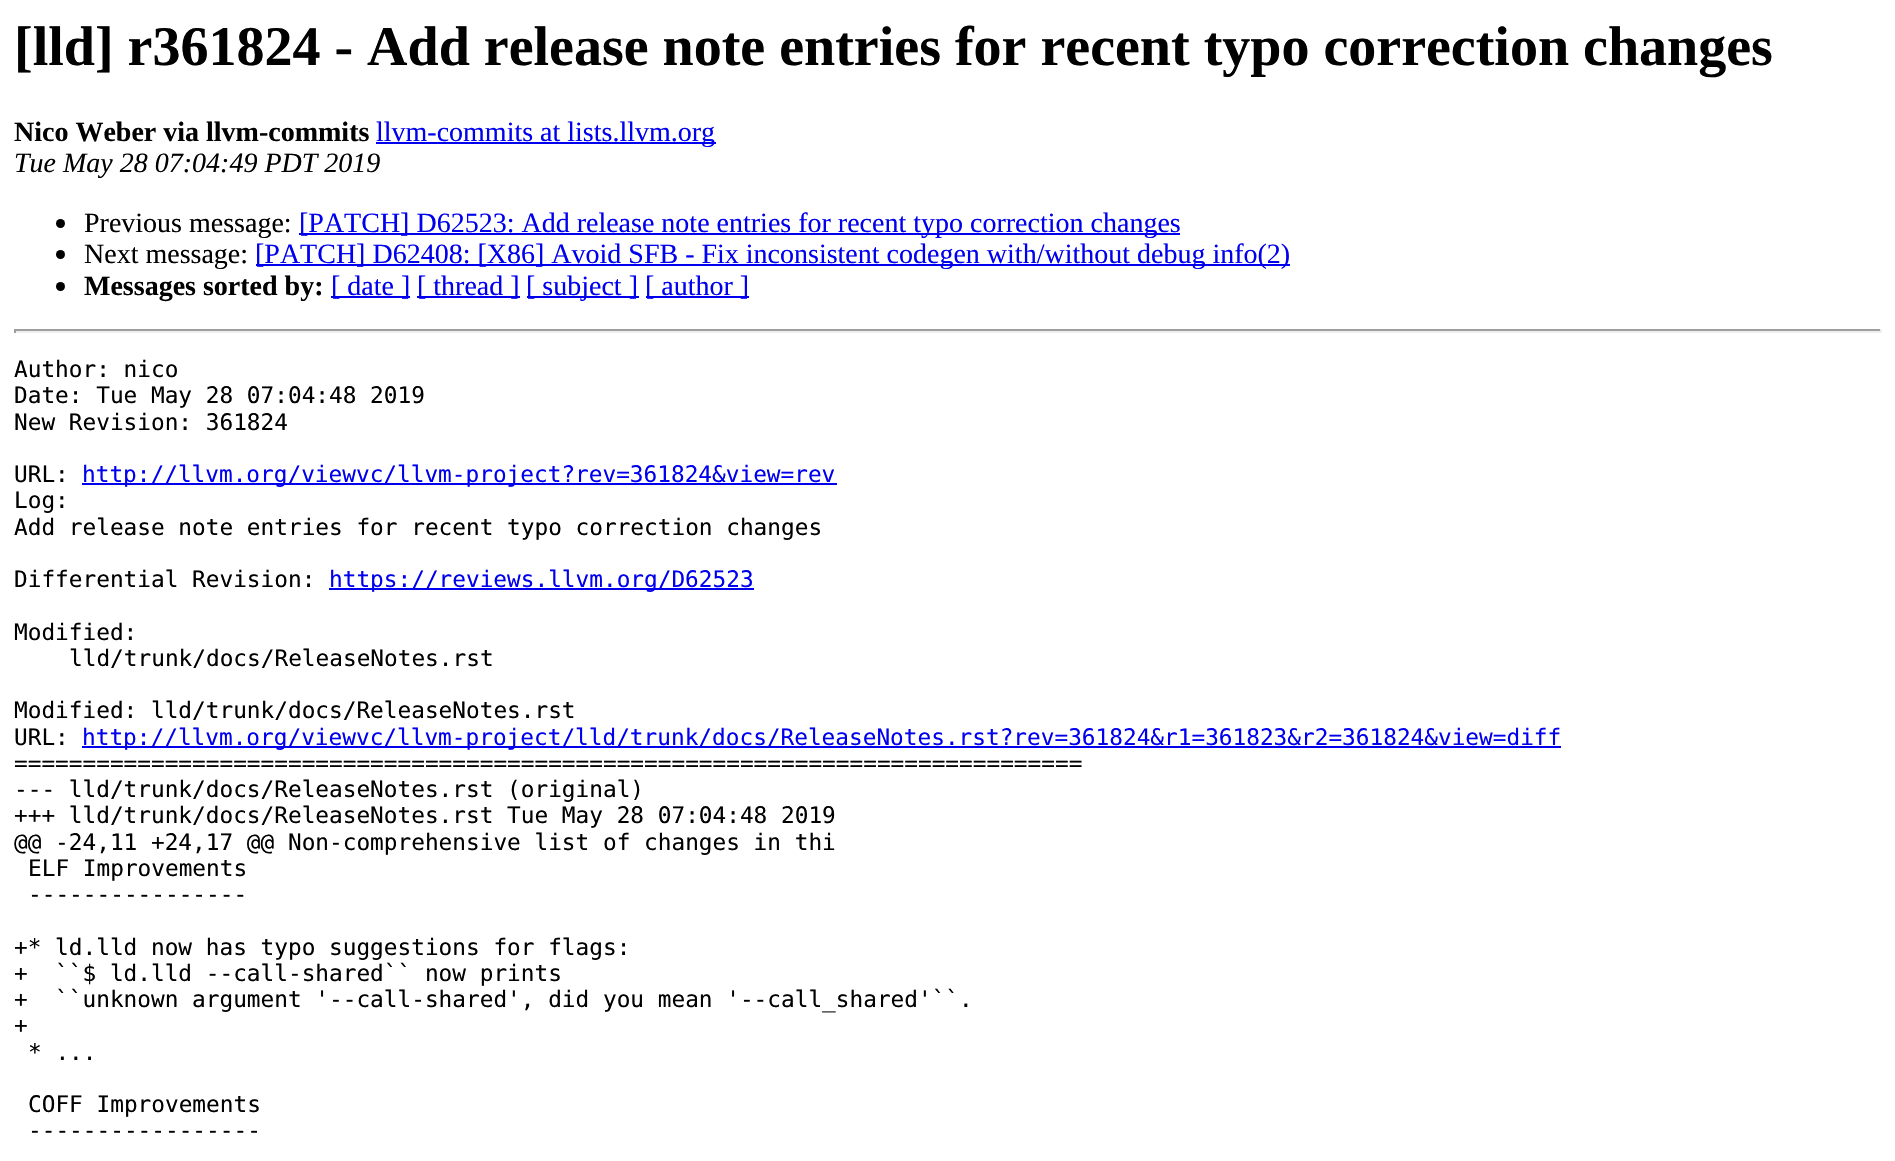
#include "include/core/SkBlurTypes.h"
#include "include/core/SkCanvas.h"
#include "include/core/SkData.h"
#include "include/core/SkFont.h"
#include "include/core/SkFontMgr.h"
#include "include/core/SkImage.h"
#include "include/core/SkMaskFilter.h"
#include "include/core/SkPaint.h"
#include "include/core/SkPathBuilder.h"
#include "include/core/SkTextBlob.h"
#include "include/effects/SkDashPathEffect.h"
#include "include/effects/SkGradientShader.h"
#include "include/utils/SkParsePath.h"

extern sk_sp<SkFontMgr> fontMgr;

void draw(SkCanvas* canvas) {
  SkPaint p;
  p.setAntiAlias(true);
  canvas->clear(SK_ColorWHITE);
  p.setColor(SkColorSetRGB(0, 0, 238));
  canvas->drawRect(SkRect::MakeLTRB(376, 142, 716, 144), p);
  p.setColor(SK_ColorBLACK);
  canvas->drawCircle(60.5f, 223.5f, 4.5f, p);
  p.setColor(SkColorSetRGB(0, 0, 238));
  canvas->drawRect(SkRect::MakeLTRB(299, 233, 1180, 235), p);
  p.setColor(SK_ColorBLACK);
  canvas->drawCircle(60.5f, 254.5f, 4.5f, p);
  p.setColor(SkColorSetRGB(0, 0, 238));
  canvas->drawRect(SkRect::MakeLTRB(256, 264, 1290, 266), p);
  p.setColor(SK_ColorBLACK);
  canvas->drawCircle(60.5f, 286.5f, 4.5f, p);
  p.setColor(SkColorSetRGB(0, 0, 238));
  canvas->drawRect(SkRect::MakeLTRB(331, 296, 410, 298), p);
  canvas->drawRect(SkRect::MakeLTRB(417, 296, 520, 298), p);
  canvas->drawRect(SkRect::MakeLTRB(527, 296, 639, 298), p);
  canvas->drawRect(SkRect::MakeLTRB(646, 296, 749, 298), p);
  p.setColor(SkColorSetRGB(159, 159, 159));
  canvas->drawRect(SkRect::MakeLTRB(14, 329, 1881, 331), p);
  p.setColor(SkColorSetRGB(238, 238, 238));
  canvas->drawRect(SkRect::MakeLTRB(1880, 329, 1882, 333), p);
  canvas->drawRect(SkRect::MakeLTRB(14, 331, 1881, 333), p);
  p.setColor(SkColorSetRGB(159, 159, 159));
  canvas->drawRect(SkRect::MakeLTRB(14, 329, 16, 333), p);
  p.setColor(SkColorSetRGB(0, 0, 238));
  canvas->drawRect(SkRect::MakeLTRB(82, 483, 837, 485), p);
  canvas->drawRect(SkRect::MakeLTRB(329, 588, 754, 590), p);
  canvas->drawRect(SkRect::MakeLTRB(82, 746, 1561, 748), p);
  SkFont font1(fontMgr->matchFamilyStyle("Liberation Serif", SkFontStyle::Bold()), 56);
  font1.setSubpixel(true);
  p.setColor(SK_ColorBLACK);
  canvas->drawString("[lld] r361824 - Add release note entries for recent typo correction changes", 14, 65, font1, p);
  SkFont font2(fontMgr->matchFamilyStyle("Liberation Serif", SkFontStyle::Bold()), 28);
  font2.setSubpixel(true);
  canvas->drawString("Nico Weber via llvm-commits", 14, 141, font2, p);
  SkFont font3(fontMgr->matchFamilyStyle("Liberation Serif", SkFontStyle::Normal()), 28);
  font3.setSubpixel(true);
  p.setColor(SkColorSetRGB(0, 0, 238));
  canvas->drawString("llvm-commits at lists.llvm.org", 376, 141, font3, p);
  SkFont font4(fontMgr->matchFamilyStyle("Liberation Serif", SkFontStyle::Italic()), 28);
  font4.setSubpixel(true);
  p.setColor(SK_ColorBLACK);
  canvas->drawString("Tue May 28 07:04:49 PDT 2019", 14, 172, font4, p);
  canvas->drawString("Previous message:", 84, 232, font3, p);
  p.setColor(SkColorSetRGB(0, 0, 238));
  canvas->drawString("[PATCH] D62523: Add release note entries for recent typo correction changes", 299, 232, font3, p);
  p.setColor(SK_ColorBLACK);
  canvas->drawString("Next message:", 84, 263, font3, p);
  p.setColor(SkColorSetRGB(0, 0, 238));
  canvas->drawString("[PATCH] D62408: [X86] Avoid SFB - Fix inconsistent codegen with/without debug info(2)", 255, 263, font3, p);
  p.setColor(SK_ColorBLACK);
  canvas->drawString("Messages sorted by:", 84, 295, font2, p);
  p.setColor(SkColorSetRGB(0, 0, 238));
  canvas->drawString("[ date ]", 331, 295, font3, p);
  canvas->drawString("[ thread ]", 417, 295, font3, p);
  canvas->drawString("[ subject ]", 526, 295, font3, p);
  canvas->drawString("[ author ]", 645, 295, font3, p);
  SkFont font5(fontMgr->matchFamilyStyle("DejaVu Sans Mono", SkFontStyle::Normal()), 22.75f);
  font5.setSubpixel(true);
  p.setColor(SK_ColorBLACK);
  canvas->drawString("Author: nico", 14, 377, font5, p);
  canvas->drawString("Date: Tue May 28 07:04:48 2019", 14, 403, font5, p);
  canvas->drawString("New Revision: 361824", 14, 430, font5, p);
  canvas->drawString("URL:", 14, 482, font5, p);
  p.setColor(SkColorSetRGB(0, 0, 238));
  canvas->drawString("http://llvm.org/viewvc/llvm-project?rev=361824&view=rev", 82, 482, font5, p);
  p.setColor(SK_ColorBLACK);
  canvas->drawString("Log:", 14, 508, font5, p);
  canvas->drawString("Add release note entries for recent typo correction changes", 14, 535, font5, p);
  canvas->drawString("Differential Revision:", 14, 587, font5, p);
  p.setColor(SkColorSetRGB(0, 0, 238));
  canvas->drawString("https://reviews.llvm.org/D62523", 329, 587, font5, p);
  p.setColor(SK_ColorBLACK);
  canvas->drawString("Modified:", 14, 640, font5, p);
  canvas->drawString("lld/trunk/docs/ReleaseNotes.rst", 69, 666, font5, p);
  canvas->drawString("Modified: lld/trunk/docs/ReleaseNotes.rst", 14, 718, font5, p);
  canvas->drawString("URL:", 14, 745, font5, p);
  p.setColor(SkColorSetRGB(0, 0, 238));
  canvas->drawString("http://llvm.org/viewvc/llvm-project/lld/trunk/docs/ReleaseNotes.rst?rev=361824&r1=361823&r2=361824&view=diff", 82, 745, font5, p);
  p.setColor(SK_ColorBLACK);
  canvas->drawString("==============================================================================", 14, 771, font5, p);
  canvas->drawString("--- lld/trunk/docs/ReleaseNotes.rst (original)", 14, 797, font5, p);
  canvas->drawString("+++ lld/trunk/docs/ReleaseNotes.rst Tue May 28 07:04:48 2019", 14, 823, font5, p);
  canvas->drawString("@@ -24,11 +24,17 @@ Non-comprehensive list of changes in thi", 14, 850, font5, p);
  canvas->drawString("ELF Improvements", 28, 876, font5, p);
  canvas->drawString("----------------", 28, 902, font5, p);
  canvas->drawString("+* ld.lld now has typo suggestions for flags:", 14, 955, font5, p);
  canvas->drawString("+  ``$ ld.lld --call-shared`` now prints", 14, 981, font5, p);
  canvas->drawString("+  ``unknown argument '--call-shared', did you mean '--call_shared'``.", 14, 1007, font5, p);
  canvas->drawString("+", 14, 1033, font5, p);
  canvas->drawString("* ...", 28, 1060, font5, p);
  canvas->drawString("COFF Improvements", 28, 1112, font5, p);
  canvas->drawString("-----------------", 28, 1138, font5, p);
}
